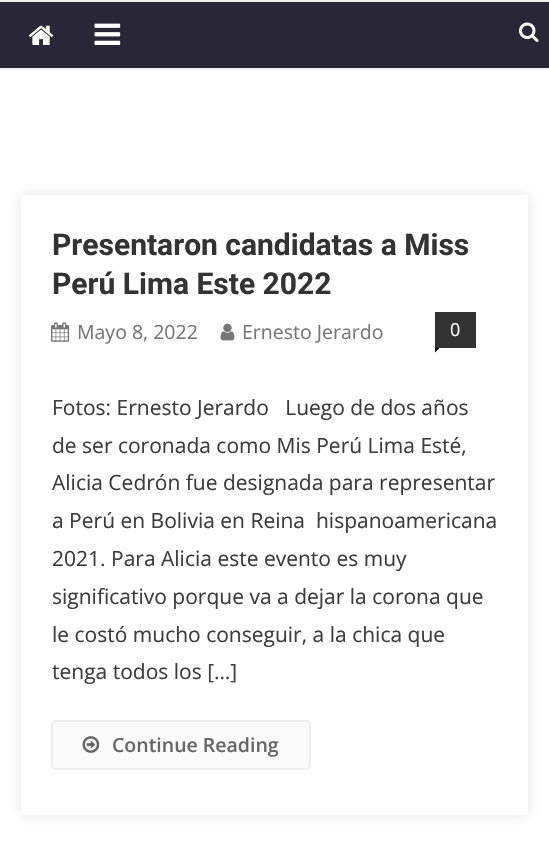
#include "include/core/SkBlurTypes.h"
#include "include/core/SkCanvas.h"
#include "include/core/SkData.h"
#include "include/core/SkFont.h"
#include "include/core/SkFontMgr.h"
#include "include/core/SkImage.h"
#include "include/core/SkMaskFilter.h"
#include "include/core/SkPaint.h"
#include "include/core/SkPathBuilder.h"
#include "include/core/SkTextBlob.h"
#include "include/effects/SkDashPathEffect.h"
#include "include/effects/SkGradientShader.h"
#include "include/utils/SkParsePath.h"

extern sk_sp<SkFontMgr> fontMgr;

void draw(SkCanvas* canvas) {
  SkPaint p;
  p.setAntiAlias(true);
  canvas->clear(SK_ColorWHITE);
  p.setColor(SkColorSetRGB(41, 38, 55));
  canvas->drawRect(SkRect::MakeLTRB(0, 2, 549, 68), p);
  p.setColor(SkColorSetRGB(238, 238, 238));
  canvas->drawRect(SkRect::MakeLTRB(0, 0, 549, 2), p);
  canvas->drawRect(SkRect::MakeLTRB(0, 68, 549, 70), p);
  canvas->drawImageRect(SkImages::DeferredFromEncodedData(SkData::MakeFromFileName("images/1.png")), SkRect::MakeLTRB(28, 25, 54, 45), SkSamplingOptions());
  canvas->drawImageRect(SkImages::DeferredFromEncodedData(SkData::MakeFromFileName("images/2.png")), SkRect::MakeLTRB(94, 23, 121, 45), SkSamplingOptions());
  canvas->drawImageRect(SkImages::DeferredFromEncodedData(SkData::MakeFromFileName("images/3.png")), SkRect::MakeLTRB(519, 22, 539, 42), SkSamplingOptions());
  p.setColor(SkColorSetARGB(26, 0, 0, 0));
  p.setMaskFilter(SkMaskFilter::MakeBlur(kNormal_SkBlurStyle, 6));
  canvas->drawRect(SkRect::MakeLTRB(21, 195, 528, 815), p);
  p.setMaskFilter(nullptr);
  p.setColor(SK_ColorWHITE);
  canvas->drawRect(SkRect::MakeLTRB(21, 195, 528, 815), p);
  canvas->drawImageRect(SkImages::DeferredFromEncodedData(SkData::MakeFromFileName("images/4.png")), SkRect::MakeLTRB(51, 322, 70, 342), SkSamplingOptions());
  canvas->drawImageRect(SkImages::DeferredFromEncodedData(SkData::MakeFromFileName("images/5.png")), SkRect::MakeLTRB(220, 323, 235, 341), SkSamplingOptions());
  p.setColor(SkColorSetRGB(51, 51, 51));
  canvas->drawRect(SkRect::MakeLTRB(435, 312, 476, 348), p);
  p.setColor(SK_ColorBLACK);
  canvas->drawPath(SkPathBuilder().moveTo(435, 348).lineTo(439.5f, 348).lineTo(435, 352.5f).close().detach(), p);
  p.setColor(SkColorSetRGB(250, 250, 250));
  canvas->drawRoundRect(SkRect::MakeLTRB(52, 721, 310, 769), 4, 4, p);
  p.setStyle(SkPaint::kStroke_Style);
  p.setStrokeWidth(2);
  p.setColor(SkColorSetRGB(238, 238, 238));
  canvas->drawRoundRect(SkRect::MakeLTRB(52, 721, 310, 769), 4, 4, p);
  canvas->drawImageRect(SkImages::DeferredFromEncodedData(SkData::MakeFromFileName("images/6.png")), SkRect::MakeLTRB(82, 736, 100, 753), SkSamplingOptions());
  SkFont font1(fontMgr->matchFamilyStyle("Roboto", SkFontStyle::Bold()), 30);
  font1.setSubpixel(true);
  p.setStyle(SkPaint::kFill_Style);
  p.setColor(SkColorSetRGB(51, 51, 51));
  canvas->drawString("Presentaron candidatas a Miss", 52, 255, font1, p);
  canvas->drawString("Perú Lima Este 2022", 52, 294, font1, p);
  SkFont font2(fontMgr->matchFamilyStyle("Open Sans", SkFontStyle::Normal()), 19.5f);
  font2.setSubpixel(true);
  p.setColor(SkColorSetRGB(118, 118, 118));
  canvas->drawString("Mayo 8, 2022", 77, 339, font2, p);
  canvas->drawString("Ernesto Jerardo", 242, 339, font2, p);
  SkFont font3(fontMgr->matchFamilyStyle("Open Sans", SkFontStyle::Normal()), 18);
  font3.setSubpixel(true);
  p.setColor(SK_ColorWHITE);
  canvas->drawString("0", 450, 336, font3, p);
  SkFont font4(fontMgr->matchFamilyStyle("Open Sans", SkFontStyle::Normal()), 21);
  font4.setSubpixel(true);
  p.setColor(SkColorSetRGB(61, 61, 61));
  canvas->drawString("Fotos: Ernesto Jerardo   Luego de dos años", 52, 415, font4, p);
  canvas->drawString("de ser coronada como Mis Perú Lima Esté,", 52, 453, font4, p);
  canvas->drawString("Alicia Cedrón fue designada para representar", 52, 490, font4, p);
  canvas->drawString("a Perú en Bolivia en Reina  hispanoamericana", 52, 528, font4, p);
  canvas->drawString("2021. Para Alicia este evento es muy", 52, 566, font4, p);
  canvas->drawString("significativo porque va a dejar la corona que", 52, 604, font4, p);
  canvas->drawString("le costó mucho conseguir, a la chica que", 52, 642, font4, p);
  canvas->drawString("tenga todos los […]", 52, 679, font4, p);
  SkFont font5(fontMgr->matchFamilyStyle("Open Sans", SkFontStyle(600, SkFontStyle::kNormal_Width, SkFontStyle::kUpright_Slant)), 19.5f);
  font5.setSubpixel(true);
  p.setColor(SkColorSetRGB(102, 102, 102));
  canvas->drawString("Continue Reading", 112, 752, font5, p);
}
